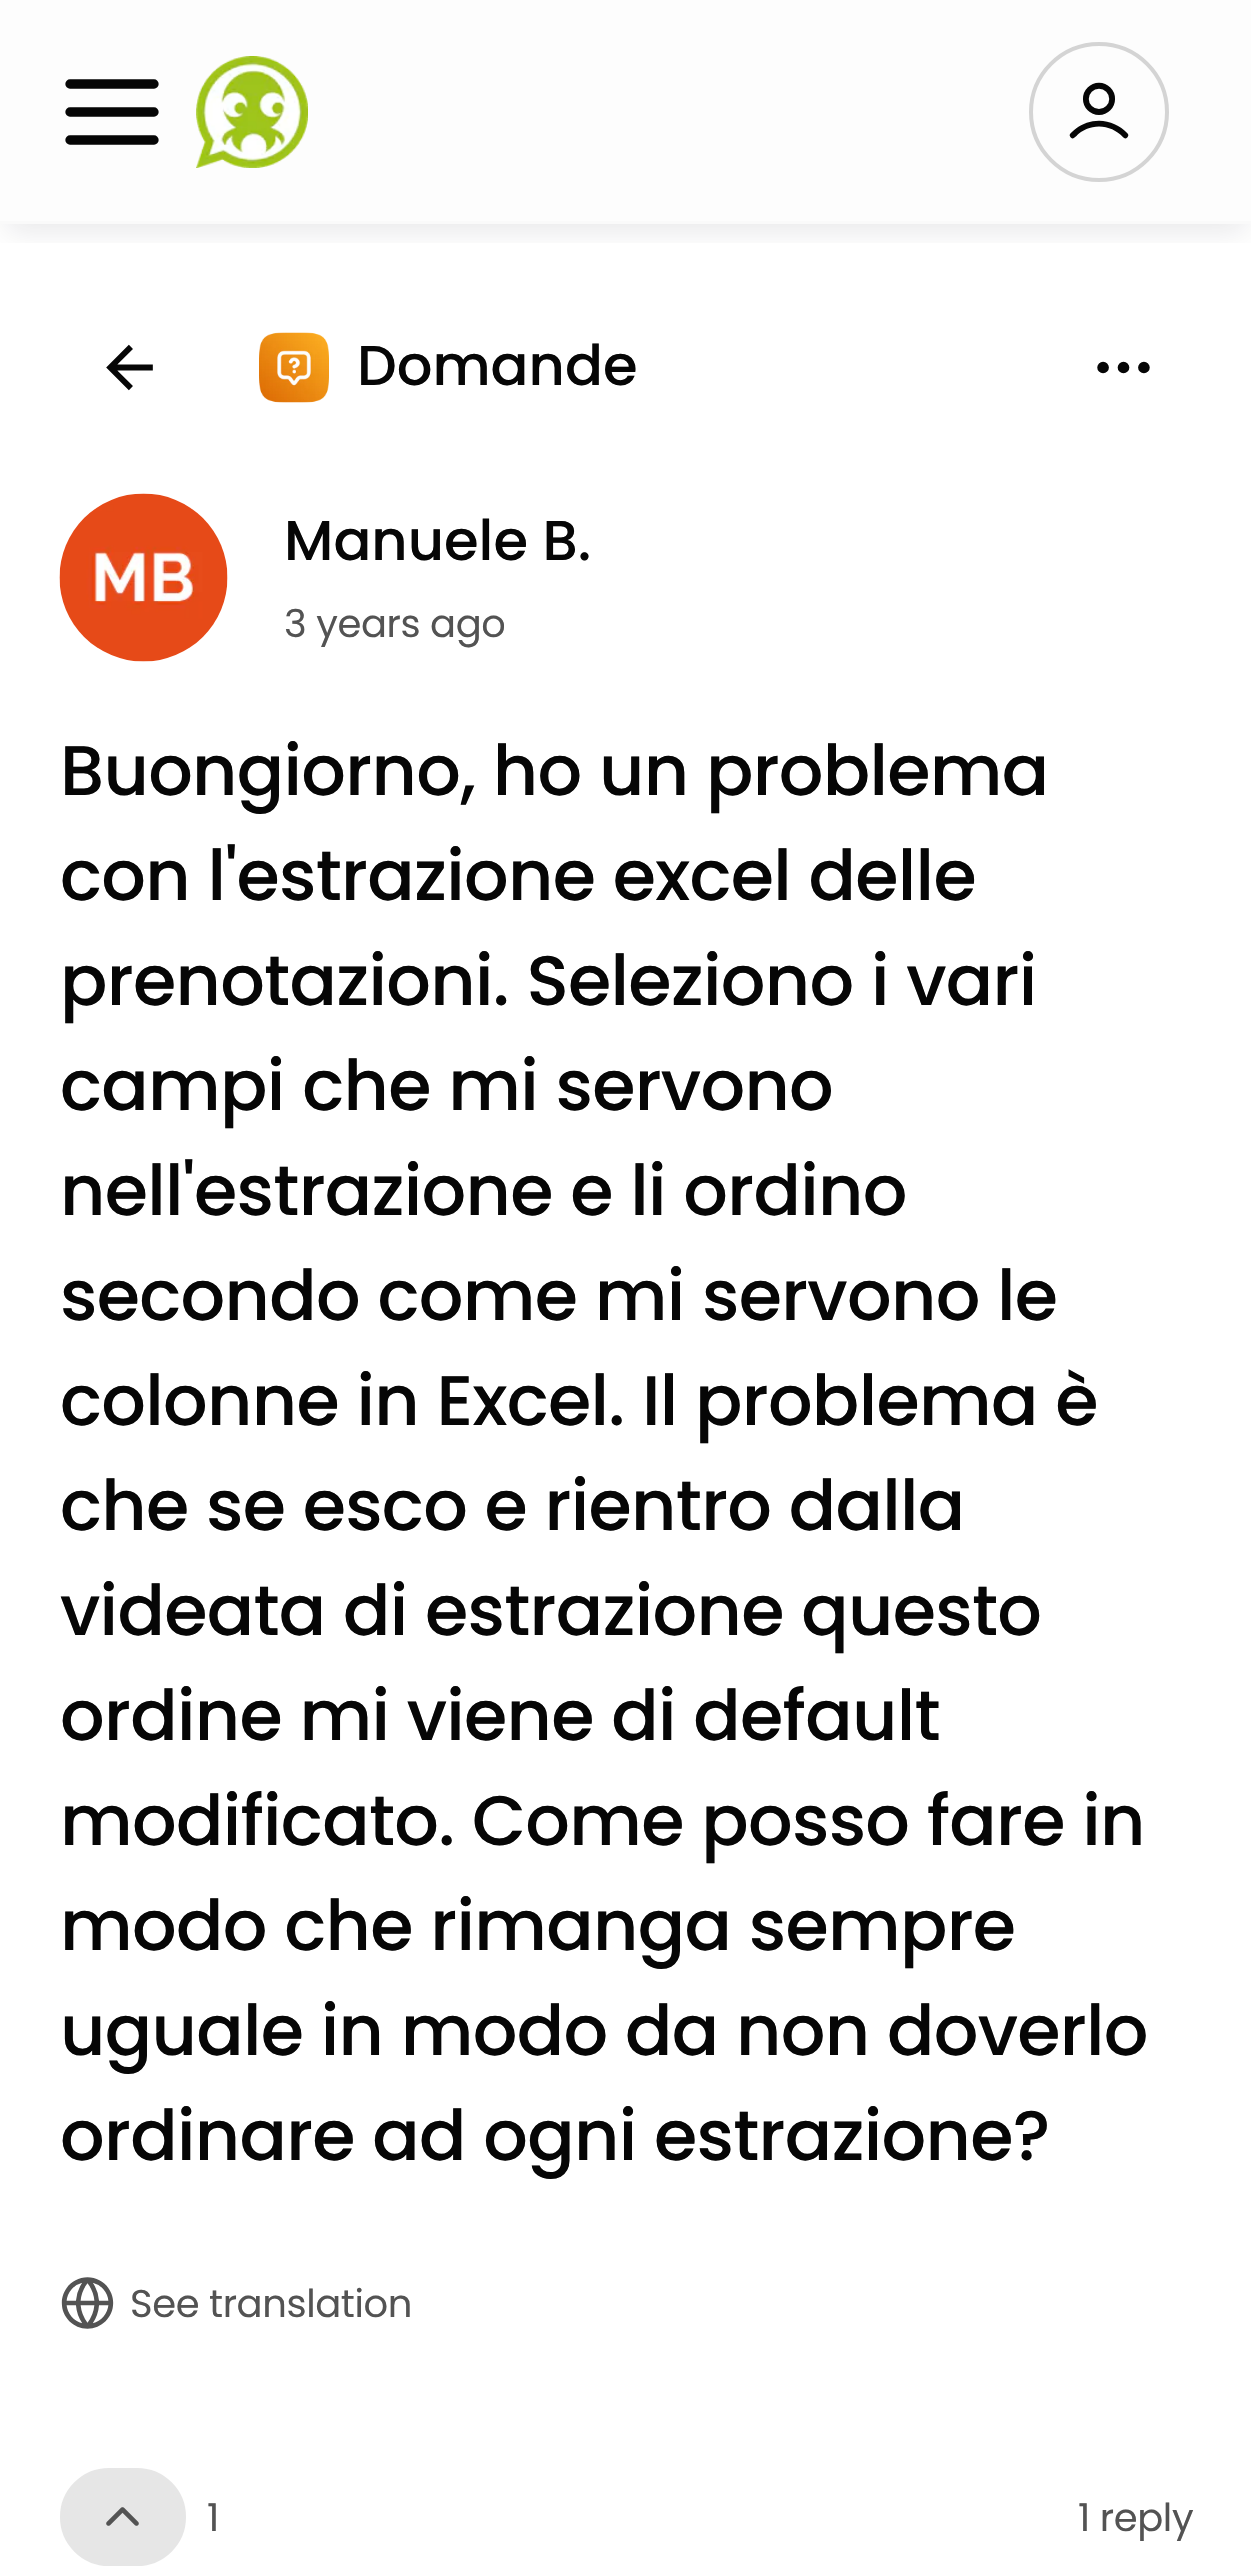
#include "include/core/SkBlurTypes.h"
#include "include/core/SkCanvas.h"
#include "include/core/SkData.h"
#include "include/core/SkFont.h"
#include "include/core/SkFontMgr.h"
#include "include/core/SkImage.h"
#include "include/core/SkMaskFilter.h"
#include "include/core/SkPaint.h"
#include "include/core/SkPathBuilder.h"
#include "include/core/SkTextBlob.h"
#include "include/effects/SkDashPathEffect.h"
#include "include/effects/SkGradientShader.h"
#include "include/utils/SkParsePath.h"

extern sk_sp<SkFontMgr> fontMgr;

void draw(SkCanvas* canvas) {
  SkPaint p;
  p.setAntiAlias(true);
  auto spacedText = [&](const char* s, float x, float y, const SkFont& font, const SkPaint& ink, float letter, float word) {
    std::vector<SkGlyphID> glyphs(font.countText(s, strlen(s), SkTextEncoding::kUTF8));
    std::vector<float> xs(glyphs.size());
    font.textToGlyphs(s, strlen(s), SkTextEncoding::kUTF8, glyphs);
    font.getXPos(glyphs, xs, x);
    float extra = 0;
    for (size_t i = 0; i < glyphs.size(); i++) {
      xs[i] += extra;
      extra += letter + word * (glyphs[i] == font.unicharToGlyph(' '));
    }
    canvas->drawTextBlob(SkTextBlob::MakeFromPosHGlyphs(glyphs, xs, y, font), 0, 0, ink);
  };
  canvas->clear(SkColorSetRGB(242, 242, 242));
  p.setStyle(SkPaint::kStroke_Style);
  p.setStrokeWidth(4);
  p.setColor(SkColorSetARGB(13, 0, 0, 0));
  canvas->drawRect(SkRect::MakeLTRB(-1, 223, 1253, 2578), p);
  p.setStyle(SkPaint::kFill_Style);
  p.setColor(SK_ColorWHITE);
  canvas->drawRect(SkRect::MakeLTRB(0, 224, 1251, 2576), p);
  canvas->save();
  canvas->clipRect(SkRect::MakeLTRB(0, 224, 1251, 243));
  p.setColor(SkColorSetARGB(26, 16, 24, 40));
  p.setMaskFilter(SkMaskFilter::MakeBlur(kNormal_SkBlurStyle, 14));
  canvas->drawRect(SkRect::MakeLTRB(7, 21, 1246, 231), p);
  p.setMaskFilter(nullptr);
  canvas->restore();
  p.setColor(SkColorSetARGB(204, 255, 255, 255));
  canvas->drawRect(SkRect::MakeLTRB(0, 0, 1251, 224), p);
  canvas->drawImageRect(SkImages::DeferredFromEncodedData(SkData::MakeFromFileName("images/1.png")), SkRect::MakeLTRB(65, 79, 159, 145), SkSamplingOptions());
  canvas->drawImageRect(SkImages::DeferredFromEncodedData(SkData::MakeFromFileName("images/2.png")), SkRect::MakeLTRB(196, 56, 308, 168), SkSamplingOptions());
  p.setStyle(SkPaint::kStroke_Style);
  p.setColor(SkColorSetRGB(212, 212, 212));
  canvas->drawCircle(1099, 112, 68, p);
  canvas->drawImageRect(SkImages::DeferredFromEncodedData(SkData::MakeFromFileName("images/3.png")), SkRect::MakeLTRB(1069, 82, 1129, 139), SkSamplingOptions());
  canvas->drawImageRect(SkImages::DeferredFromEncodedData(SkData::MakeFromFileName("images/4.png")), SkRect::MakeLTRB(106, 344, 153, 391), SkSamplingOptions());
  canvas->drawImageRect(SkImages::DeferredFromEncodedData(SkData::MakeFromFileName("images/5.png")), SkRect::MakeLTRB(259, 332, 329, 403), SkSamplingOptions());
  canvas->drawImageRect(SkImages::DeferredFromEncodedData(SkData::MakeFromFileName("images/6.png")), SkRect::MakeLTRB(1097, 361, 1150, 374), SkSamplingOptions());
  canvas->drawImageRect(SkImages::DeferredFromEncodedData(SkData::MakeFromFileName("images/7.png")), SkRect::MakeLTRB(59, 493, 228, 662), SkSamplingOptions());
  canvas->drawImageRect(SkImages::DeferredFromEncodedData(SkData::MakeFromFileName("images/8.png")), SkRect::MakeLTRB(61, 2277, 114, 2329), SkSamplingOptions());
  p.setStyle(SkPaint::kFill_Style);
  p.setColor(SkColorSetRGB(230, 230, 230));
  canvas->drawRoundRect(SkRect::MakeLTRB(63.5f, 2471.5f, 182.5f, 2562.5f), 45.5f, 45.5f, p);
  p.setStyle(SkPaint::kStroke_Style);
  p.setStrokeWidth(7);
  canvas->drawRoundRect(SkRect::MakeLTRB(63.5f, 2471.5f, 182.5f, 2562.5f), 45.5f, 45.5f, p);
  canvas->drawImageRect(SkImages::DeferredFromEncodedData(SkData::MakeFromFileName("images/9.png")), SkRect::MakeLTRB(106, 2507, 139, 2526), SkSamplingOptions());
  SkFont font1(fontMgr->matchFamilyStyle("Poppins", SkFontStyle(500, SkFontStyle::kNormal_Width, SkFontStyle::kUpright_Slant)), 56);
  font1.setSubpixel(true);
  p.setStyle(SkPaint::kFill_Style);
  p.setColor(SkColorSetRGB(6, 6, 6));
  canvas->drawString("Domande", 357, 385, font1, p);
  canvas->drawString("Manuele B.", 284, 560, font1, p);
  canvas->save();
  canvas->clipPath(SkPathBuilder().moveTo(312, 592).lineTo(476, 592).cubicTo(491.5f, 592, 504, 604.5f, 504, 620).lineTo(504, 627).cubicTo(504, 642.5f, 491.5f, 655, 476, 655).lineTo(312, 655).cubicTo(296.5f, 655, 284, 642.5f, 284, 627).lineTo(284, 620).cubicTo(284, 604.5f, 296.5f, 592, 312, 592).close().detach(), true);
  SkFont font2(fontMgr->matchFamilyStyle("Poppins", SkFontStyle::Normal()), 38.5f);
  font2.setSubpixel(true);
  p.setColor(SkColorSetRGB(83, 83, 83));
  spacedText("3 years ago", 284, 637, font2, p, -0.4f, 0);
  canvas->restore();
  SkFont font3(fontMgr->matchFamilyStyle("Poppins", SkFontStyle(500, SkFontStyle::kNormal_Width, SkFontStyle::kUpright_Slant)), 70);
  font3.setSubpixel(true);
  p.setColor(SkColorSetRGB(6, 6, 6));
  spacedText("Buongiorno, ho un problema", 60, 795, font3, p, -0.7f, 0);
  spacedText("con l'estrazione excel delle", 60, 900, font3, p, -0.7f, 0);
  spacedText("prenotazioni. Seleziono i vari", 60, 1005, font3, p, -0.7f, 0);
  spacedText("campi che mi servono", 60, 1110, font3, p, -0.7f, 0);
  spacedText("nell'estrazione e li ordino", 60, 1215, font3, p, -0.7f, 0);
  spacedText("secondo come mi servono le", 60, 1320, font3, p, -0.7f, 0);
  spacedText("colonne in Excel. Il problema è", 60, 1425, font3, p, -0.7f, 0);
  spacedText("che se esco e rientro dalla", 60, 1530, font3, p, -0.7f, 0);
  spacedText("videata di estrazione questo", 60, 1635, font3, p, -0.7f, 0);
  spacedText("ordine mi viene di default", 60, 1740, font3, p, -0.7f, 0);
  spacedText("modificato. Come posso fare in", 60, 1845, font3, p, -0.7f, 0);
  spacedText("modo che rimanga sempre", 60, 1950, font3, p, -0.7f, 0);
  spacedText("uguale in modo da non doverlo", 60, 2055, font3, p, -0.7f, 0);
  spacedText("ordinare ad ogni estrazione?", 60, 2160, font3, p, -0.7f, 0);
  p.setColor(SkColorSetRGB(83, 83, 83));
  spacedText("See translation", 130, 2317, font2, p, -0.4f, 0);
  spacedText("1", 207, 2531, font2, p, -0.4f, 0);
  spacedText("1 reply", 1078, 2531, font2, p, -0.4f, 0);
}
